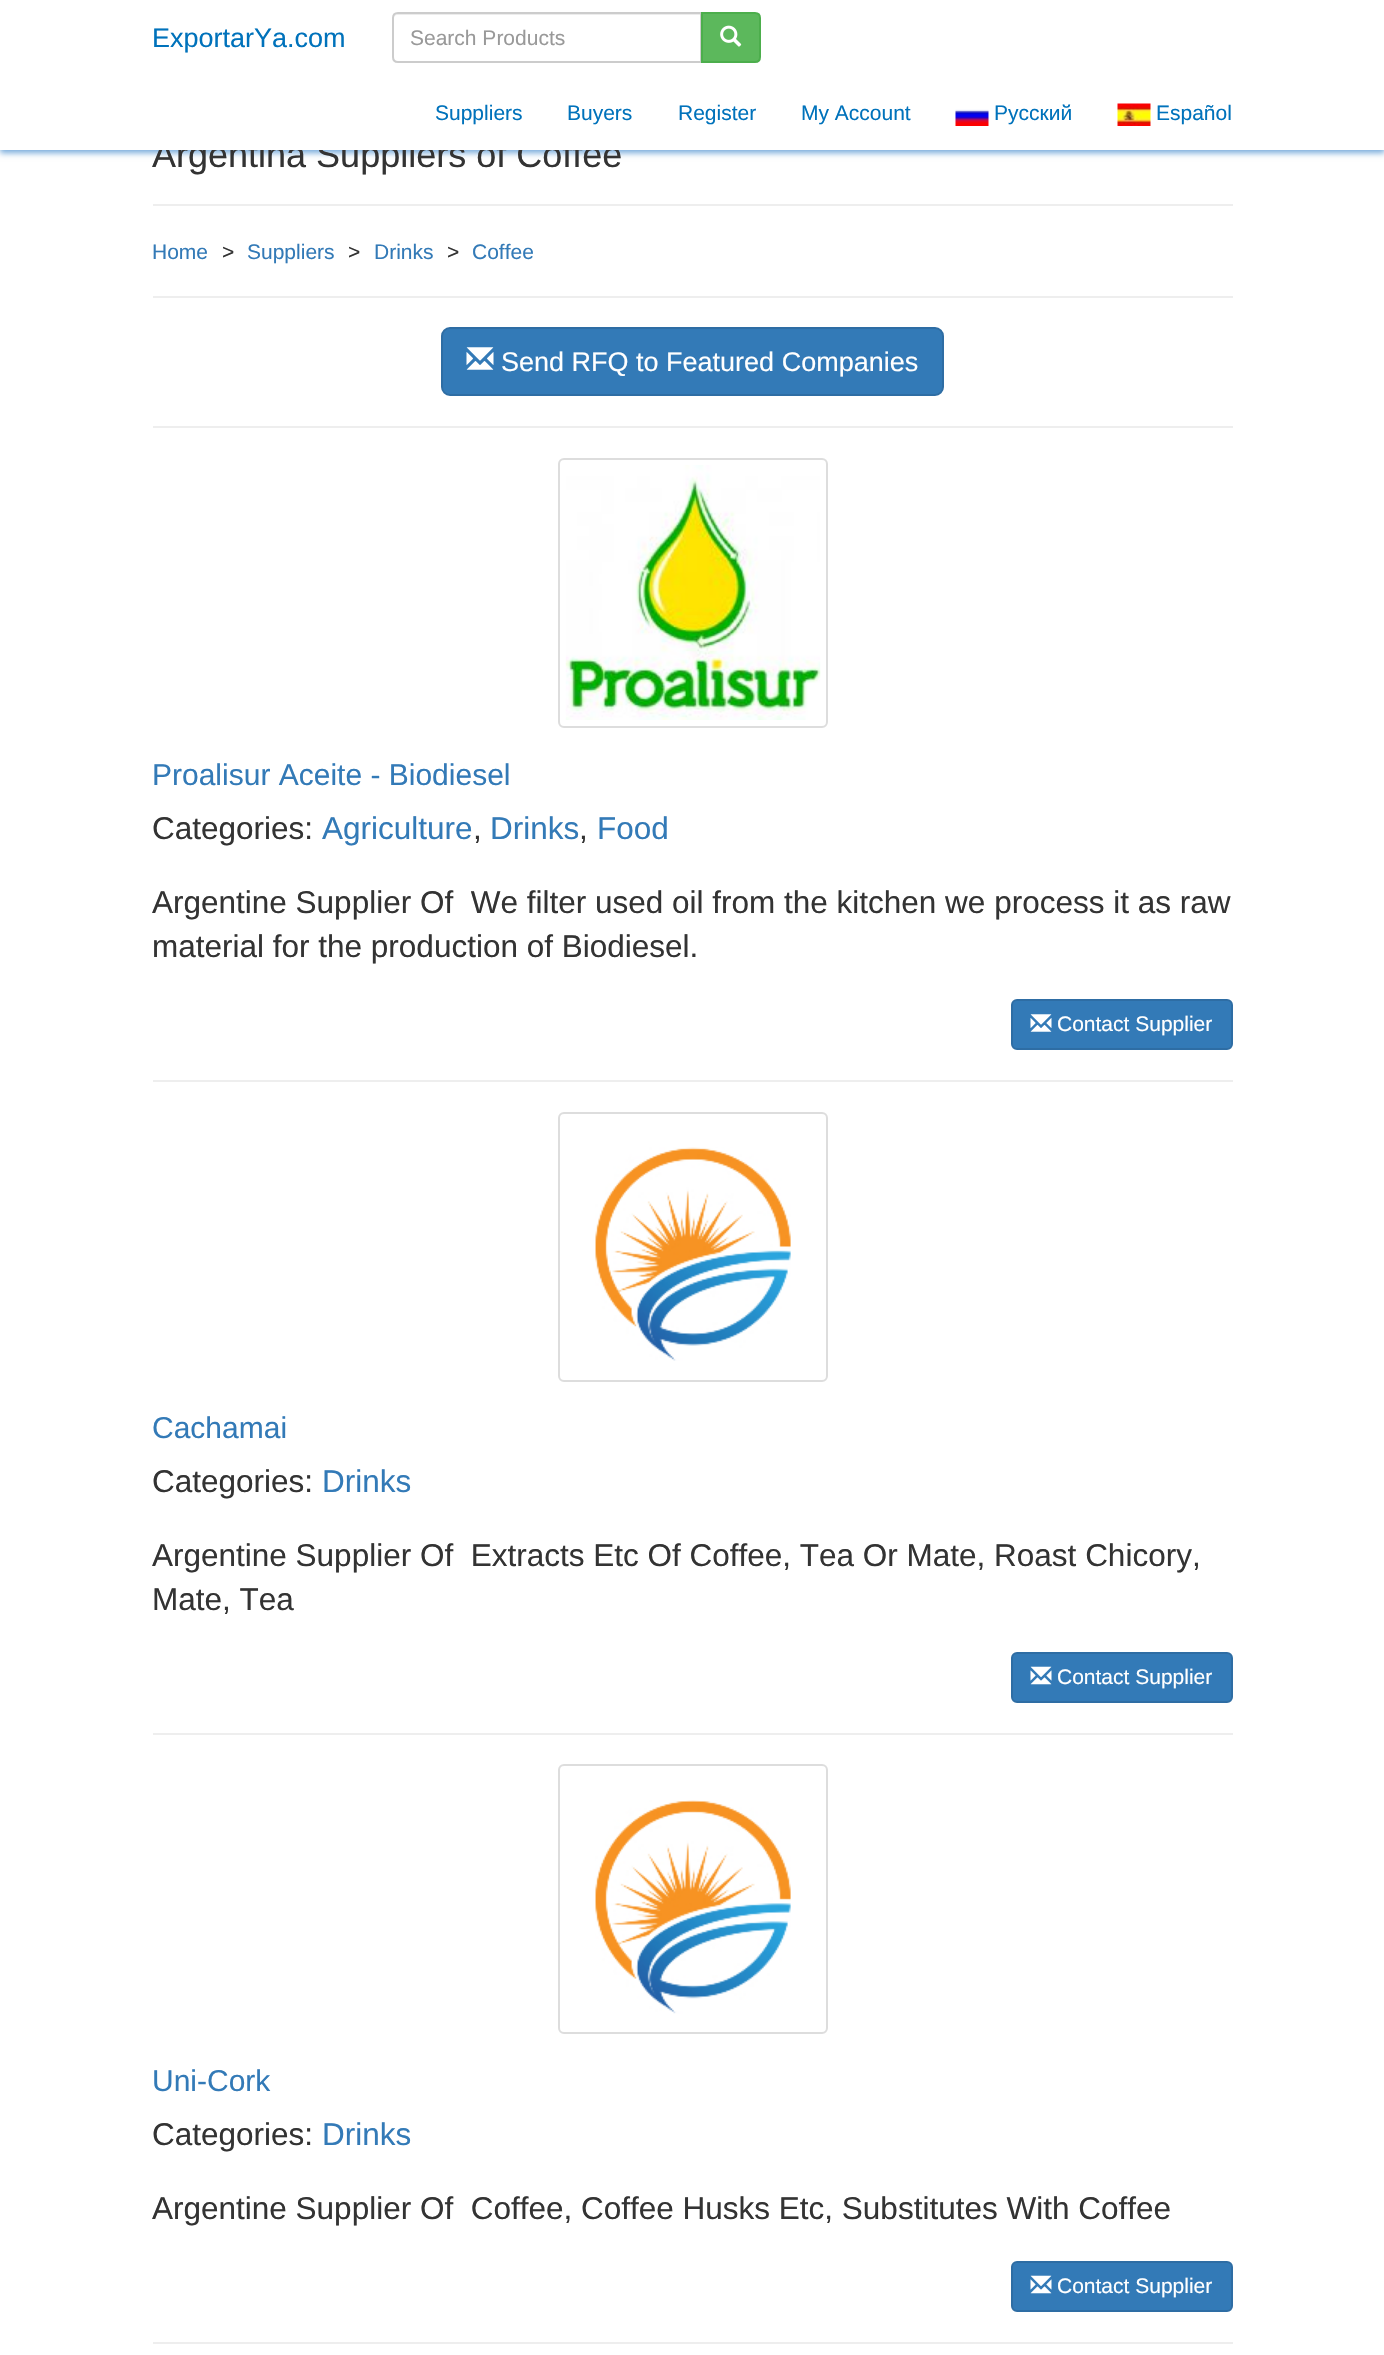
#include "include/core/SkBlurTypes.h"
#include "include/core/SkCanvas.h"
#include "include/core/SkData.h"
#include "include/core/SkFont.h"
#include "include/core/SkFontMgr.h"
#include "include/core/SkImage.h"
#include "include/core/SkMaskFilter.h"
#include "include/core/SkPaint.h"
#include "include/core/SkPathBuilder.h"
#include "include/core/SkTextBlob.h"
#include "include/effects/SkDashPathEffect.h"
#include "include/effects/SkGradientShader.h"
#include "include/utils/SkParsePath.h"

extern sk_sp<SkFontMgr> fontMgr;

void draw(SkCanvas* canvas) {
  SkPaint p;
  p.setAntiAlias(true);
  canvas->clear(SK_ColorWHITE);
  p.setColor(SkColorSetRGB(117, 170, 219));
  p.setMaskFilter(SkMaskFilter::MakeBlur(kNormal_SkBlurStyle, 3));
  canvas->drawRect(SkRect::MakeLTRB(0, 3, 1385, 153), p);
  p.setMaskFilter(nullptr);
  p.setColor(SkColorSetRGB(238, 238, 238));
  canvas->drawRect(SkRect::MakeLTRB(153, 204, 1233, 206), p);
  canvas->drawRect(SkRect::MakeLTRB(153, 296, 1233, 298), p);
  p.setColor(SkColorSetRGB(51, 122, 183));
  canvas->drawRoundRect(SkRect::MakeLTRB(442, 328, 943, 395), 8, 8, p);
  p.setStyle(SkPaint::kStroke_Style);
  p.setStrokeWidth(2);
  p.setColor(SkColorSetRGB(46, 109, 164));
  canvas->drawRoundRect(SkRect::MakeLTRB(442, 328, 943, 395), 8, 8, p);
  canvas->drawImageRect(SkImages::DeferredFromEncodedData(SkData::MakeFromFileName("images/4.png")), SkRect::MakeLTRB(466, 347, 494, 370), SkSamplingOptions());
  p.setStyle(SkPaint::kFill_Style);
  p.setColor(SkColorSetRGB(238, 238, 238));
  canvas->drawRect(SkRect::MakeLTRB(153, 426, 1233, 428), p);
  p.setStyle(SkPaint::kStroke_Style);
  p.setColor(SkColorSetRGB(221, 221, 221));
  canvas->drawRoundRect(SkRect::MakeLTRB(559, 459, 827, 727), 5, 5, p);
  canvas->drawImageRect(SkImages::DeferredFromEncodedData(SkData::MakeFromFileName("images/5.png")), SkRect::MakeLTRB(565, 465, 821, 720), SkSamplingOptions());
  p.setStyle(SkPaint::kFill_Style);
  p.setColor(SkColorSetRGB(51, 122, 183));
  canvas->drawRoundRect(SkRect::MakeLTRB(1012, 1000, 1232, 1049), 5, 5, p);
  p.setStyle(SkPaint::kStroke_Style);
  p.setColor(SkColorSetRGB(46, 109, 164));
  canvas->drawRoundRect(SkRect::MakeLTRB(1012, 1000, 1232, 1049), 5, 5, p);
  canvas->drawImageRect(SkImages::DeferredFromEncodedData(SkData::MakeFromFileName("images/6.png")), SkRect::MakeLTRB(1030, 1014, 1052, 1032), SkSamplingOptions());
  p.setStyle(SkPaint::kFill_Style);
  p.setColor(SkColorSetRGB(238, 238, 238));
  canvas->drawRect(SkRect::MakeLTRB(153, 1080, 1233, 1082), p);
  p.setStyle(SkPaint::kStroke_Style);
  p.setColor(SkColorSetRGB(221, 221, 221));
  canvas->drawRoundRect(SkRect::MakeLTRB(559, 1113, 827, 1381), 5, 5, p);
  canvas->drawImageRect(SkImages::DeferredFromEncodedData(SkData::MakeFromFileName("images/7.png")), SkRect::MakeLTRB(595, 1147, 791, 1361), SkSamplingOptions());
  p.setStyle(SkPaint::kFill_Style);
  p.setColor(SkColorSetRGB(51, 122, 183));
  canvas->drawRoundRect(SkRect::MakeLTRB(1012, 1653, 1232, 1702), 5, 5, p);
  p.setStyle(SkPaint::kStroke_Style);
  p.setColor(SkColorSetRGB(46, 109, 164));
  canvas->drawRoundRect(SkRect::MakeLTRB(1012, 1653, 1232, 1702), 5, 5, p);
  canvas->drawImageRect(SkImages::DeferredFromEncodedData(SkData::MakeFromFileName("images/8.png")), SkRect::MakeLTRB(1030, 1666, 1052, 1685), SkSamplingOptions());
  p.setStyle(SkPaint::kFill_Style);
  p.setColor(SkColorSetRGB(238, 238, 238));
  canvas->drawRect(SkRect::MakeLTRB(153, 1733, 1233, 1735), p);
  p.setStyle(SkPaint::kStroke_Style);
  p.setColor(SkColorSetRGB(221, 221, 221));
  canvas->drawRoundRect(SkRect::MakeLTRB(559, 1765, 827, 2033), 5, 5, p);
  canvas->drawImageRect(SkImages::DeferredFromEncodedData(SkData::MakeFromFileName("images/9.png")), SkRect::MakeLTRB(595, 1800, 791, 2014), SkSamplingOptions());
  p.setStyle(SkPaint::kFill_Style);
  p.setColor(SkColorSetRGB(51, 122, 183));
  canvas->drawRoundRect(SkRect::MakeLTRB(1012, 2262, 1232, 2311), 5, 5, p);
  p.setStyle(SkPaint::kStroke_Style);
  p.setColor(SkColorSetRGB(46, 109, 164));
  canvas->drawRoundRect(SkRect::MakeLTRB(1012, 2262, 1232, 2311), 5, 5, p);
  canvas->drawImageRect(SkImages::DeferredFromEncodedData(SkData::MakeFromFileName("images/8.png")), SkRect::MakeLTRB(1030, 2275, 1052, 2294), SkSamplingOptions());
  p.setStyle(SkPaint::kFill_Style);
  p.setColor(SkColorSetRGB(238, 238, 238));
  canvas->drawRect(SkRect::MakeLTRB(153, 2342, 1233, 2344), p);
  SkFont font1(fontMgr->matchFamilyStyle("Liberation Sans", SkFontStyle::Normal()), 36);
  font1.setSubpixel(true);
  p.setColor(SkColorSetRGB(51, 51, 51));
  canvas->drawString("Argentina Suppliers of Coffee", 152, 167, font1, p);
  p.setColor(SK_ColorWHITE);
  canvas->drawRect(SkRect::MakeLTRB(0, 0, 1384, 150), p);
  p.setColor(SkColorSetRGB(236, 236, 236));
  canvas->drawPath(SkPathBuilder().moveTo(398, 15).lineTo(700, 15).lineTo(700, 62).lineTo(701, 62).lineTo(701, 14).lineTo(398, 14).cubicTo(395, 14, 393, 17, 393, 20).cubicTo(393, 17, 395, 15, 398, 15).close().detach(), p);
  p.setStyle(SkPaint::kStroke_Style);
  p.setColor(SkColorSetRGB(204, 204, 204));
  canvas->drawPath(SkPathBuilder().moveTo(398, 13).lineTo(701, 13).lineTo(701, 62).lineTo(398, 62).cubicTo(395, 62, 393, 60, 393, 57).lineTo(393, 18).cubicTo(393, 15, 395, 13, 398, 13).close().detach(), p);
  p.setStyle(SkPaint::kFill_Style);
  p.setColor(SkColorSetRGB(92, 184, 92));
  canvas->drawPath(SkPathBuilder().moveTo(702, 13).lineTo(755, 13).cubicTo(758, 13, 760, 15, 760, 18).lineTo(760, 57).cubicTo(760, 60, 758, 62, 755, 62).lineTo(702, 62).close().detach(), p);
  p.setStyle(SkPaint::kStroke_Style);
  p.setColor(SkColorSetRGB(76, 174, 76));
  canvas->drawPath(SkPathBuilder().moveTo(702, 13).lineTo(755, 13).cubicTo(758, 13, 760, 15, 760, 18).lineTo(760, 57).cubicTo(760, 60, 758, 62, 755, 62).lineTo(702, 62).close().detach(), p);
  canvas->drawImageRect(SkImages::DeferredFromEncodedData(SkData::MakeFromFileName("images/1.png")), SkRect::MakeLTRB(720, 25, 742, 47), SkSamplingOptions());
  SkFont font2(fontMgr->matchFamilyStyle("Liberation Sans", SkFontStyle::Normal()), 21);
  font2.setSubpixel(true);
  p.setStyle(SkPaint::kFill_Style);
  p.setColor(SkColorSetRGB(153, 153, 153));
  canvas->drawString("Search Products", 410, 45, font2, p);
  p.setColor(SkColorSetRGB(0, 114, 187));
  canvas->drawString("Español", 1156, 120, font2, p);
  canvas->drawImageRect(SkImages::DeferredFromEncodedData(SkData::MakeFromFileName("images/3.png")), SkRect::MakeLTRB(1117, 103, 1151, 126), SkSamplingOptions());
  canvas->drawString("Русский", 994, 120, font2, p);
  canvas->drawImageRect(SkImages::DeferredFromEncodedData(SkData::MakeFromFileName("images/2.png")), SkRect::MakeLTRB(955, 109, 989, 126), SkSamplingOptions());
  canvas->drawString("My Account", 801, 120, font2, p);
  canvas->drawString("Register", 678, 120, font2, p);
  canvas->drawString("Buyers", 567, 120, font2, p);
  canvas->drawString("Suppliers", 435, 120, font2, p);
  SkFont font3(fontMgr->matchFamilyStyle("Liberation Sans", SkFontStyle::Normal()), 27);
  font3.setSubpixel(true);
  canvas->drawString("ExportarYa.com", 152, 47, font3, p);
  p.setColor(SkColorSetRGB(51, 122, 183));
  canvas->drawString("Home", 152, 259, font2, p);
  p.setColor(SkColorSetRGB(51, 51, 51));
  canvas->drawString(">", 222, 259, font2, p);
  p.setColor(SkColorSetRGB(51, 122, 183));
  canvas->drawString("Suppliers", 247, 259, font2, p);
  p.setColor(SkColorSetRGB(51, 51, 51));
  canvas->drawString(">", 348, 259, font2, p);
  p.setColor(SkColorSetRGB(51, 122, 183));
  canvas->drawString("Drinks", 374, 259, font2, p);
  p.setColor(SkColorSetRGB(51, 51, 51));
  canvas->drawString(">", 447, 259, font2, p);
  p.setColor(SkColorSetRGB(51, 122, 183));
  canvas->drawString("Coffee", 472, 259, font2, p);
  p.setColor(SK_ColorWHITE);
  canvas->drawString("Send RFQ to Featured Companies", 501, 371, font3, p);
  SkFont font4(fontMgr->matchFamilyStyle("Liberation Sans", SkFontStyle::Normal()), 30);
  font4.setSubpixel(true);
  p.setColor(SkColorSetRGB(51, 122, 183));
  canvas->drawString("Proalisur Aceite - Biodiesel", 152, 785, font4, p);
  SkFont font5(fontMgr->matchFamilyStyle("Liberation Sans", SkFontStyle::Normal()), 31.5f);
  font5.setSubpixel(true);
  p.setColor(SkColorSetRGB(51, 51, 51));
  canvas->drawString("Categories:", 152, 839, font5, p);
  p.setColor(SkColorSetRGB(51, 122, 183));
  canvas->drawString("Agriculture", 322, 839, font5, p);
  p.setColor(SkColorSetRGB(51, 51, 51));
  canvas->drawString(",", 473, 839, font5, p);
  p.setColor(SkColorSetRGB(51, 122, 183));
  canvas->drawString("Drinks", 490, 839, font5, p);
  p.setColor(SkColorSetRGB(51, 51, 51));
  canvas->drawString(",", 579, 839, font5, p);
  p.setColor(SkColorSetRGB(51, 122, 183));
  canvas->drawString("Food", 597, 839, font5, p);
  p.setColor(SkColorSetRGB(51, 51, 51));
  canvas->drawString("Argentine Supplier Of  We filter used oil from the kitchen we process it as raw", 152, 913, font5, p);
  canvas->drawString("material for the production of Biodiesel.", 152, 957, font5, p);
  p.setColor(SK_ColorWHITE);
  canvas->drawString("Contact Supplier", 1057, 1031, font2, p);
  p.setColor(SkColorSetRGB(51, 122, 183));
  canvas->drawString("Cachamai", 152, 1438, font4, p);
  p.setColor(SkColorSetRGB(51, 51, 51));
  canvas->drawString("Categories:", 152, 1492, font5, p);
  p.setColor(SkColorSetRGB(51, 122, 183));
  canvas->drawString("Drinks", 322, 1492, font5, p);
  p.setColor(SkColorSetRGB(51, 51, 51));
  canvas->drawString("Argentine Supplier Of  Extracts Etc Of Coffee, Tea Or Mate, Roast Chicory,", 152, 1566, font5, p);
  canvas->drawString("Mate, Tea", 152, 1610, font5, p);
  p.setColor(SK_ColorWHITE);
  canvas->drawString("Contact Supplier", 1057, 1684, font2, p);
  p.setColor(SkColorSetRGB(51, 122, 183));
  canvas->drawString("Uni-Cork", 152, 2091, font4, p);
  p.setColor(SkColorSetRGB(51, 51, 51));
  canvas->drawString("Categories:", 152, 2145, font5, p);
  p.setColor(SkColorSetRGB(51, 122, 183));
  canvas->drawString("Drinks", 322, 2145, font5, p);
  p.setColor(SkColorSetRGB(51, 51, 51));
  canvas->drawString("Argentine Supplier Of  Coffee, Coffee Husks Etc, Substitutes With Coffee", 152, 2219, font5, p);
  p.setColor(SK_ColorWHITE);
  canvas->drawString("Contact Supplier", 1057, 2293, font2, p);
}
